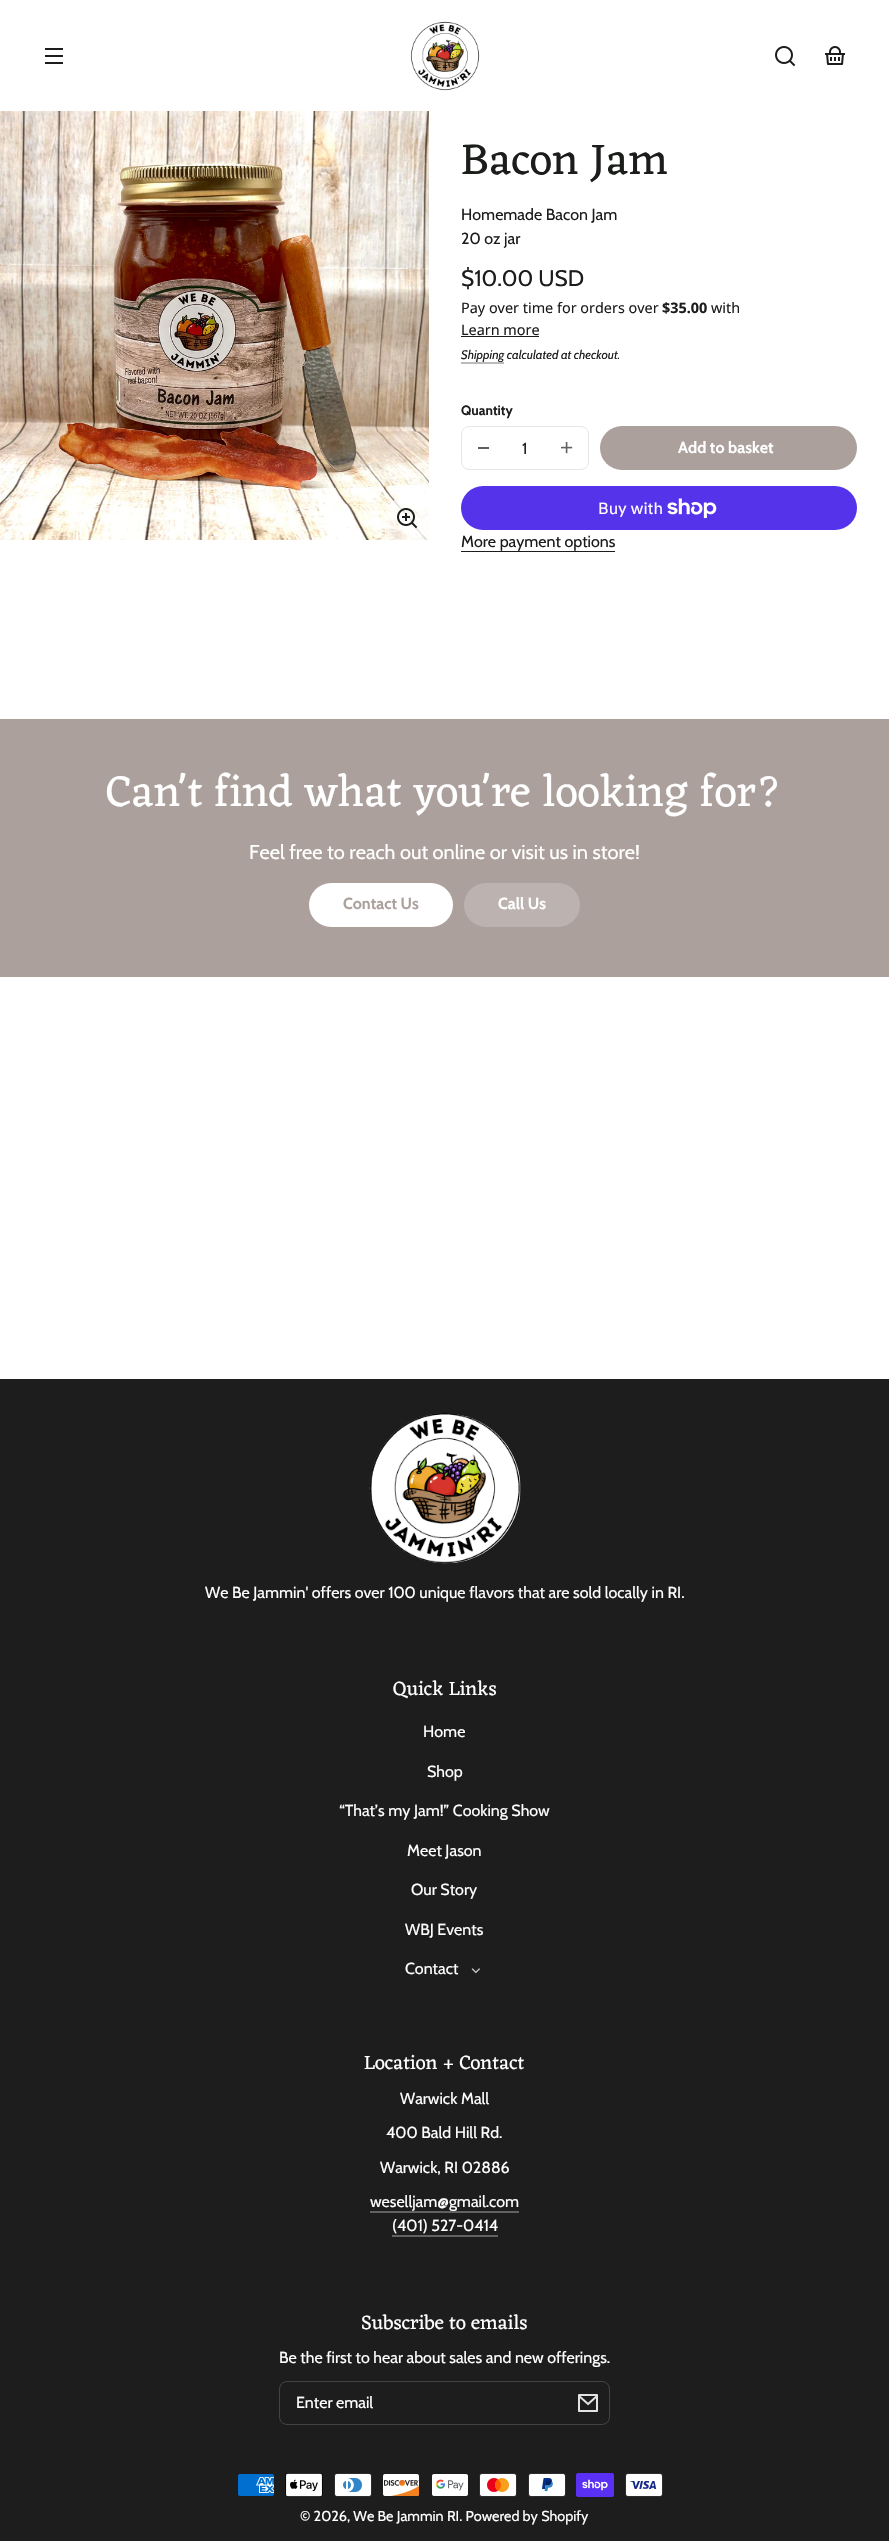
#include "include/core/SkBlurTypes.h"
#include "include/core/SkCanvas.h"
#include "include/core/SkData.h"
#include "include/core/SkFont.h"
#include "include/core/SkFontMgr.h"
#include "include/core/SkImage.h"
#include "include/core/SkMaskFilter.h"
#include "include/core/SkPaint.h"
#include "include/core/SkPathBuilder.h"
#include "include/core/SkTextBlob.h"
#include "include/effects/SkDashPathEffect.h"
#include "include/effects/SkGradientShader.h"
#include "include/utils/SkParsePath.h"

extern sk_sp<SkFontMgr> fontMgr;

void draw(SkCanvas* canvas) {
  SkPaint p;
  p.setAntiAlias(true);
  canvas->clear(SK_ColorWHITE);
  canvas->drawImageRect(SkImages::DeferredFromEncodedData(SkData::MakeFromFileName("images/1.png")), SkRect::MakeLTRB(45, 48, 63, 64), SkSamplingOptions());
  canvas->drawImageRect(SkImages::DeferredFromEncodedData(SkData::MakeFromFileName("images/2.png")), SkRect::MakeLTRB(410, 21, 480, 91), SkSamplingOptions());
  canvas->drawImageRect(SkImages::DeferredFromEncodedData(SkData::MakeFromFileName("images/3.png")), SkRect::MakeLTRB(775, 46, 796, 67), SkSamplingOptions());
  canvas->drawImageRect(SkImages::DeferredFromEncodedData(SkData::MakeFromFileName("images/4.png")), SkRect::MakeLTRB(825, 46, 845, 65), SkSamplingOptions());
  canvas->drawImageRect(SkImages::DeferredFromEncodedData(SkData::MakeFromFileName("images/5.png")), SkRect::MakeLTRB(0, 111, 429, 540), SkSamplingOptions());
  p.setColor(SkColorSetARGB(179, 255, 255, 255));
  canvas->drawPath(SkPathBuilder().moveTo(407, 496).lineTo(429, 496).lineTo(429, 540).lineTo(385, 540).lineTo(385, 518).cubicTo(385, 506, 395, 496, 407, 496).close().detach(), p);
  canvas->drawImageRect(SkImages::DeferredFromEncodedData(SkData::MakeFromFileName("images/6.png")), SkRect::MakeLTRB(397, 508, 418, 529), SkSamplingOptions());
  p.setColor(SkColorSetRGB(27, 29, 27));
  canvas->drawRect(SkRect::MakeLTRB(461, 336, 539, 337), p);
  p.setColor(SkColorSetRGB(187, 187, 187));
  canvas->drawRect(SkRect::MakeLTRB(461, 362, 504, 364), p);
  p.setStyle(SkPaint::kStroke_Style);
  p.setStrokeWidth(1);
  p.setColor(SkColorSetRGB(230, 230, 230));
  canvas->drawRoundRect(SkRect::MakeLTRB(461.5f, 426.5f, 588.5f, 469.5f), 7.5f, 7.5f, p);
  p.setStyle(SkPaint::kFill_Style);
  p.setColor(SkColorSetRGB(95, 97, 95));
  canvas->drawRect(SkRect::MakeLTRB(478, 447, 489, 449), p);
  canvas->drawImageRect(SkImages::DeferredFromEncodedData(SkData::MakeFromFileName("images/7.png")), SkRect::MakeLTRB(561, 442, 573, 454), SkSamplingOptions());
  p.setColor(SkColorSetRGB(171, 160, 156));
  canvas->drawRoundRect(SkRect::MakeLTRB(600, 426, 857, 470), 22, 22, p);
  p.setColor(SkColorSetRGB(84, 51, 235));
  canvas->drawRoundRect(SkRect::MakeLTRB(461, 486, 857, 530), 22, 22, p);
  canvas->drawImageRect(SkImages::DeferredFromEncodedData(SkData::MakeFromFileName("images/8.png")), SkRect::MakeLTRB(667, 498, 717, 518), SkSamplingOptions());
  p.setColor(SkColorSetRGB(27, 29, 27));
  canvas->drawRect(SkRect::MakeLTRB(461, 551, 615, 552), p);
  p.setColor(SkColorSetRGB(171, 160, 156));
  canvas->drawRect(SkRect::MakeLTRB(0, 719, 889, 977), p);
  p.setColor(SK_ColorWHITE);
  canvas->drawRoundRect(SkRect::MakeLTRB(309, 883, 453, 927), 22, 22, p);
  p.setColor(SkColorSetRGB(188, 179, 176));
  canvas->drawRoundRect(SkRect::MakeLTRB(464, 883, 580, 927), 22, 22, p);
  p.setColor(SkColorSetRGB(28, 29, 28));
  canvas->drawRect(SkRect::MakeLTRB(0, 1379, 889, 2541), p);
  canvas->drawImageRect(SkImages::DeferredFromEncodedData(SkData::MakeFromFileName("images/9.png")), SkRect::MakeLTRB(369, 1413, 521, 1564), SkSamplingOptions());
  canvas->drawImageRect(SkImages::DeferredFromEncodedData(SkData::MakeFromFileName("images/10.png")), SkRect::MakeLTRB(471, 1968, 480, 1974), SkSamplingOptions());
  p.setColor(SkColorSetRGB(96, 97, 96));
  canvas->drawRect(SkRect::MakeLTRB(370, 2211, 519, 2213), p);
  canvas->drawRect(SkRect::MakeLTRB(392, 2235, 498, 2237), p);
  p.setStyle(SkPaint::kStroke_Style);
  p.setColor(SkColorSetRGB(67, 67, 67));
  canvas->drawRoundRect(SkRect::MakeLTRB(279.5f, 2381.5f, 609.5f, 2424.5f), 7.5f, 7.5f, p);
  canvas->drawImageRect(SkImages::DeferredFromEncodedData(SkData::MakeFromFileName("images/11.png")), SkRect::MakeLTRB(578, 2394, 598, 2412), SkSamplingOptions());
  canvas->drawImageRect(SkImages::DeferredFromEncodedData(SkData::MakeFromFileName("images/12.png")), SkRect::MakeLTRB(238, 2474, 274, 2496), SkSamplingOptions());
  canvas->drawImageRect(SkImages::DeferredFromEncodedData(SkData::MakeFromFileName("images/13.png")), SkRect::MakeLTRB(285, 2473, 323, 2497), SkSamplingOptions());
  canvas->drawImageRect(SkImages::DeferredFromEncodedData(SkData::MakeFromFileName("images/14.png")), SkRect::MakeLTRB(334, 2473, 372, 2497), SkSamplingOptions());
  canvas->drawImageRect(SkImages::DeferredFromEncodedData(SkData::MakeFromFileName("images/15.png")), SkRect::MakeLTRB(383, 2474, 419, 2496), SkSamplingOptions());
  canvas->drawImageRect(SkImages::DeferredFromEncodedData(SkData::MakeFromFileName("images/16.png")), SkRect::MakeLTRB(432, 2474, 468, 2496), SkSamplingOptions());
  canvas->drawImageRect(SkImages::DeferredFromEncodedData(SkData::MakeFromFileName("images/17.png")), SkRect::MakeLTRB(479, 2473, 517, 2497), SkSamplingOptions());
  canvas->drawImageRect(SkImages::DeferredFromEncodedData(SkData::MakeFromFileName("images/18.png")), SkRect::MakeLTRB(528, 2473, 566, 2497), SkSamplingOptions());
  canvas->drawImageRect(SkImages::DeferredFromEncodedData(SkData::MakeFromFileName("images/19.png")), SkRect::MakeLTRB(576, 2473, 614, 2497), SkSamplingOptions());
  canvas->drawImageRect(SkImages::DeferredFromEncodedData(SkData::MakeFromFileName("images/20.png")), SkRect::MakeLTRB(625, 2473, 663, 2497), SkSamplingOptions());
  SkFont font1(fontMgr->matchFamilyStyle("Eczar", SkFontStyle::Normal()), 44.75f);
  font1.setSubpixel(true);
  p.setStyle(SkPaint::kFill_Style);
  p.setColor(SkColorSetRGB(27, 29, 27));
  canvas->drawString("Bacon Jam", 461, 174, font1, p);
  SkFont font2(fontMgr->matchFamilyStyle("Cabin", SkFontStyle::Normal()), 16);
  font2.setSubpixel(true);
  canvas->drawString("Homemade Bacon Jam", 461, 220, font2, p);
  canvas->drawString("20 oz jar", 461, 244, font2, p);
  SkFont font3(fontMgr->matchFamilyStyle("Cabin", SkFontStyle::Normal()), 22.5f);
  font3.setSubpixel(true);
  canvas->drawString("$10.00 USD", 461, 286, font3, p);
  SkFont font4(fontMgr->matchFamilyStyle("Noto Sans", SkFontStyle::Normal()), 14.4f);
  font4.setSubpixel(true);
  canvas->drawString("Pay over time for orders over", 461, 313, font4, p);
  SkFont font5(fontMgr->matchFamilyStyle("Noto Sans", SkFontStyle::Bold()), 14.4f);
  font5.setSubpixel(true);
  canvas->drawString("$35.00", 662, 313, font5, p);
  canvas->drawString("with", 711, 313, font4, p);
  canvas->drawString("Learn more", 461, 335, font4, p);
  SkFont font6(fontMgr->matchFamilyStyle("Cabin", SkFontStyle::Italic()), 12.4f);
  font6.setSubpixel(true);
  canvas->drawString("Shipping calculated at checkout.", 461, 359, font6, p);
  SkFont font7(fontMgr->matchFamilyStyle("Cabin", SkFontStyle::Bold()), 13.5f);
  font7.setSubpixel(true);
  canvas->drawString("Quantity", 461, 415, font7, p);
  canvas->drawString("1", 522, 454, font2, p);
  SkFont font8(fontMgr->matchFamilyStyle("Cabin", SkFontStyle::Bold()), 16);
  font8.setSubpixel(true);
  p.setColor(SK_ColorWHITE);
  canvas->drawString("Add to basket", 678, 453, font8, p);
  SkFont font9(fontMgr->matchFamilyStyle("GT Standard", SkFontStyle::Normal()), 16);
  font9.setSubpixel(true);
  canvas->drawString("Buy with", 598, 514, font9, p);
  p.setColor(SkColorSetRGB(27, 29, 27));
  canvas->drawString("More payment options", 461, 547, font2, p);
  p.setColor(SK_ColorWHITE);
  canvas->drawString("Can't find what you're looking for?", 106, 806, font1, p);
  SkFont font10(fontMgr->matchFamilyStyle("Cabin", SkFontStyle::Normal()), 20);
  font10.setSubpixel(true);
  canvas->drawString("Feel free to reach out online or visit us in store!", 249, 859, font10, p);
  p.setColor(SkColorSetRGB(171, 160, 156));
  canvas->drawString("Contact Us", 343, 909, font8, p);
  p.setColor(SK_ColorWHITE);
  canvas->drawString("Call Us", 498, 909, font8, p);
  canvas->drawString("We Be Jammin' offers over 100 unique flavors that are sold locally in RI.", 205, 1598, font2, p);
  SkFont font11(fontMgr->matchFamilyStyle("Eczar", SkFontStyle::Normal()), 20);
  font11.setSubpixel(true);
  canvas->drawString("Quick Links", 393, 1695, font11, p);
  canvas->drawString("Home", 423, 1737, font2, p);
  canvas->drawString("Shop", 427, 1777, font2, p);
  canvas->drawString("“That’s my Jam!” Cooking Show", 339, 1816, font2, p);
  canvas->drawString("Meet Jason", 407, 1856, font2, p);
  canvas->drawString("Our Story", 411, 1895, font2, p);
  canvas->drawString("WBJ Events", 405, 1935, font2, p);
  canvas->drawString("Contact", 405, 1974, font2, p);
  canvas->drawString("Location + Contact", 364, 2069, font11, p);
  canvas->drawString("Warwick Mall", 400, 2104, font2, p);
  canvas->drawString("400 Bald Hill Rd.", 386, 2138, font2, p);
  canvas->drawString("Warwick, RI 02886", 380, 2173, font2, p);
  canvas->drawString("weselljam@gmail.com", 370, 2207, font2, p);
  canvas->drawString("(401) 527-0414", 392, 2231, font2, p);
  canvas->drawString("Subscribe to emails", 361, 2329, font11, p);
  canvas->drawString("Be the first to hear about sales and new offerings.", 279, 2363, font2, p);
  canvas->drawString("Enter email", 296, 2408, font2, p);
  SkFont font12(fontMgr->matchFamilyStyle("Cabin", SkFontStyle::Normal()), 14.4f);
  font12.setSubpixel(true);
  canvas->drawString("© 2026, We Be Jammin RI. Powered by Shopify", 300, 2521, font12, p);
}
